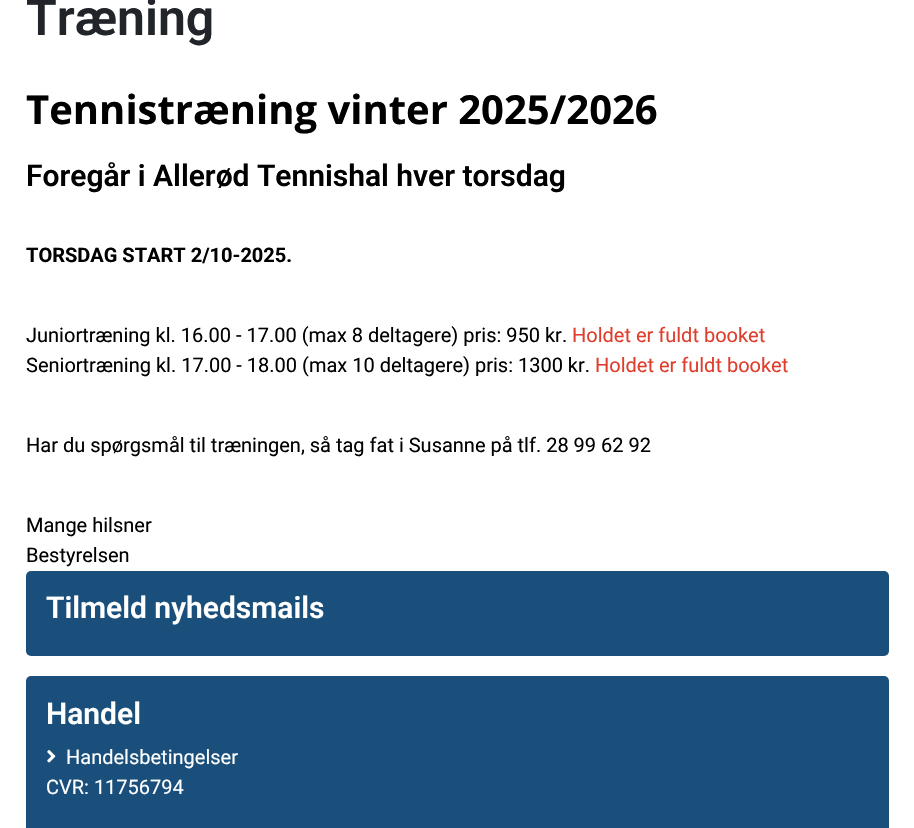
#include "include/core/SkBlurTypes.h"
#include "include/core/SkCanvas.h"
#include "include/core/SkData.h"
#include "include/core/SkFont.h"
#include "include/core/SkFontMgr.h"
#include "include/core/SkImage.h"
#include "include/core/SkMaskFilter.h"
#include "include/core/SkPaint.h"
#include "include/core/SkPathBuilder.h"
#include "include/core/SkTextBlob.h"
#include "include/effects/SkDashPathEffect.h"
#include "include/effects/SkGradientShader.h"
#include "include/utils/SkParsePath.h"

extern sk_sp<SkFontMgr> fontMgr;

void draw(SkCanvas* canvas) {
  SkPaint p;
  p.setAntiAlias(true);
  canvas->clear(SK_ColorWHITE);
  p.setColor(SkColorSetRGB(25, 79, 122));
  canvas->drawRoundRect(SkRect::MakeLTRB(26, 571, 889, 656), 5, 5, p);
  canvas->drawRoundRect(SkRect::MakeLTRB(26, 676, 889, 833), 5, 5, p);
  canvas->drawImageRect(SkImages::DeferredFromEncodedData(SkData::MakeFromFileName("images/1.png")), SkRect::MakeLTRB(47, 750, 56, 763), SkSamplingOptions());
  SkFont font1(fontMgr->matchFamilyStyle("Roboto", SkFontStyle(600, SkFontStyle::kNormal_Width, SkFontStyle::kUpright_Slant)), 50);
  font1.setSubpixel(true);
  p.setColor(SkColorSetRGB(33, 37, 41));
  canvas->drawString("Træning", 26, 35, font1, p);
  SkFont font2(fontMgr->matchFamilyStyle("Open Sans", SkFontStyle::Bold()), 40);
  font2.setSubpixel(true);
  p.setColor(SK_ColorBLACK);
  canvas->drawString("Tennistræning vinter 2025/2026", 26, 124, font2, p);
  SkFont font3(fontMgr->matchFamilyStyle("Roboto", SkFontStyle(600, SkFontStyle::kNormal_Width, SkFontStyle::kUpright_Slant)), 30);
  font3.setSubpixel(true);
  canvas->drawString("Foregår i Allerød Tennishal hver torsdag", 26, 186, font3, p);
  SkFont font4(fontMgr->matchFamilyStyle("Roboto", SkFontStyle::Bold()), 20);
  font4.setSubpixel(true);
  canvas->drawString("TORSDAG START 2/10-2025.", 26, 262, font4, p);
  SkFont font5(fontMgr->matchFamilyStyle("Roboto", SkFontStyle::Normal()), 20);
  font5.setSubpixel(true);
  canvas->drawString("Juniortræning kl. 16.00 - 17.00 (max 8 deltagere) pris: 950 kr.", 26, 342, font5, p);
  p.setColor(SkColorSetRGB(224, 62, 45));
  canvas->drawString("Holdet er fuldt booket", 572, 342, font5, p);
  p.setColor(SK_ColorBLACK);
  canvas->drawString("Seniortræning kl. 17.00 - 18.00 (max 10 deltagere) pris: 1300 kr.", 26, 372, font5, p);
  p.setColor(SkColorSetRGB(224, 62, 45));
  canvas->drawString("Holdet er fuldt booket", 595, 372, font5, p);
  p.setColor(SK_ColorBLACK);
  canvas->drawString("Har du spørgsmål til træningen, så tag fat i Susanne på tlf. 28 99 62 92", 26, 452, font5, p);
  canvas->drawString("Mange hilsner", 26, 532, font5, p);
  canvas->drawString("Bestyrelsen", 26, 562, font5, p);
  p.setColor(SK_ColorWHITE);
  canvas->drawString("Tilmeld nyhedsmails", 46, 618, font3, p);
  canvas->drawString("Handel", 46, 724, font3, p);
  canvas->drawString("Handelsbetingelser", 66, 764, font5, p);
  canvas->drawString("CVR: 11756794", 46, 794, font5, p);
}
